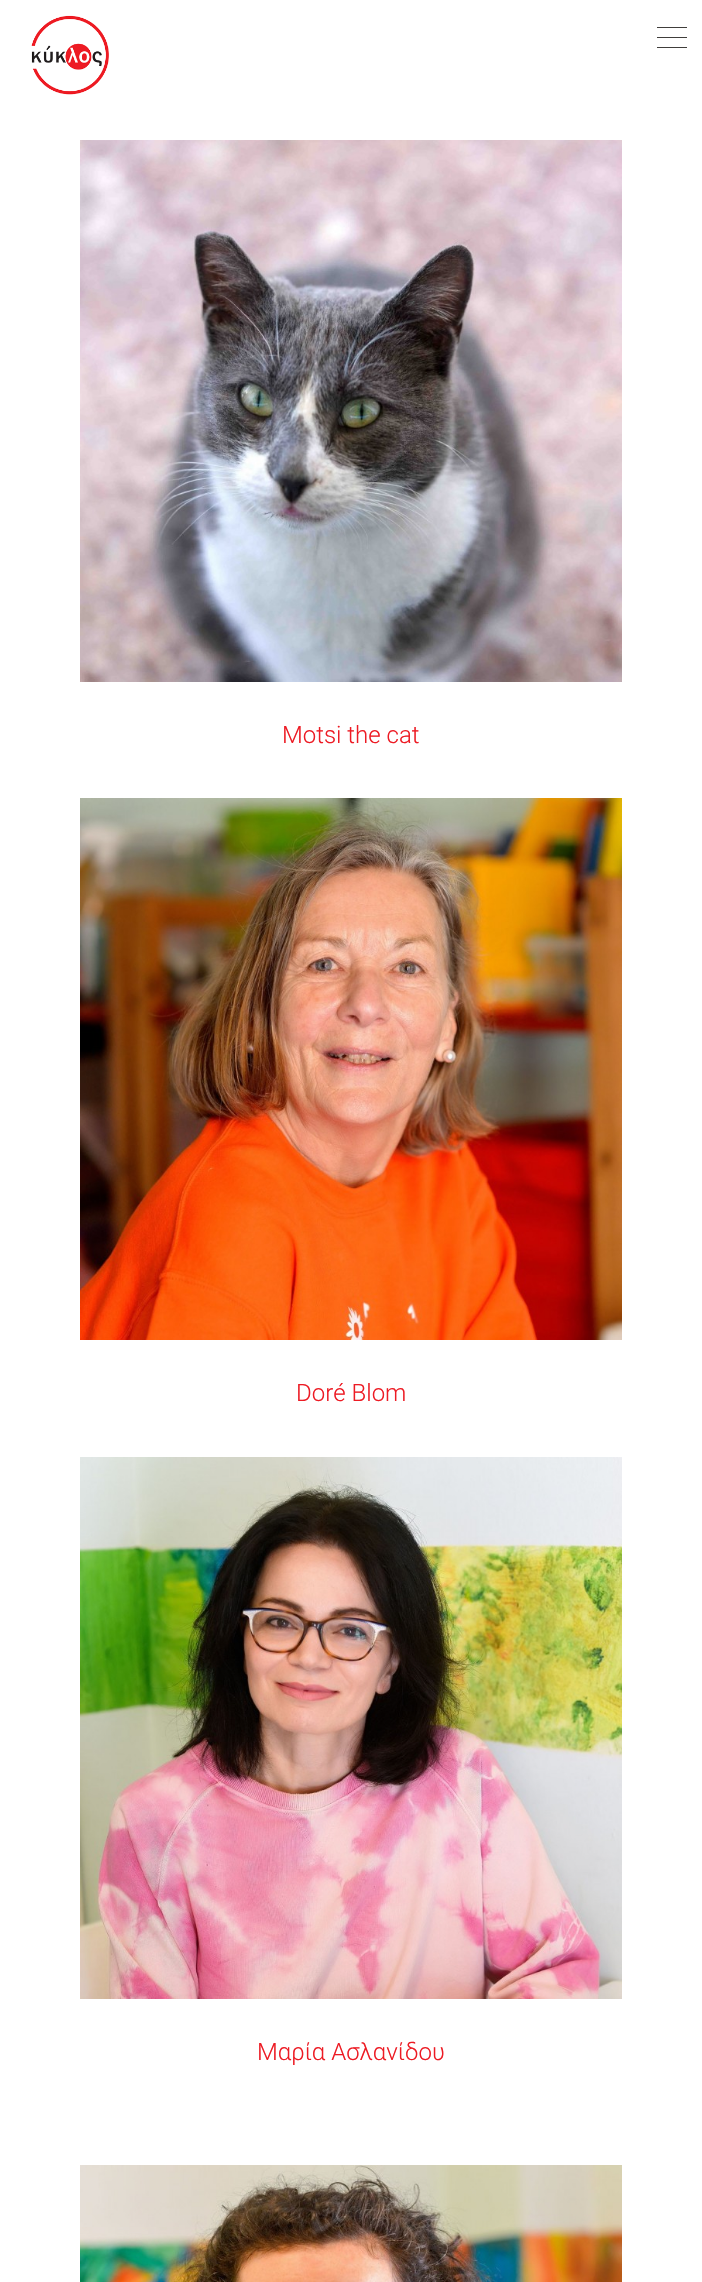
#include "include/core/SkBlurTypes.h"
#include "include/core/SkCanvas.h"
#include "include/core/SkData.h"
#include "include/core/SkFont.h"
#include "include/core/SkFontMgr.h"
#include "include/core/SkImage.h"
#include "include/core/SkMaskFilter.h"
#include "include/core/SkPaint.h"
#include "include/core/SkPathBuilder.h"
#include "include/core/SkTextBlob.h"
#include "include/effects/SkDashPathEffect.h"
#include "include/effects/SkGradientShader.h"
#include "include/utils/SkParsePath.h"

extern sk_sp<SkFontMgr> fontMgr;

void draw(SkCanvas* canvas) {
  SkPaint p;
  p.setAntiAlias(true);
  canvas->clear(SK_ColorWHITE);
  canvas->drawImageRect(SkImages::DeferredFromEncodedData(SkData::MakeFromFileName("images/1.png")), SkRect::MakeLTRB(31, 15, 109, 95), SkSamplingOptions());
  p.setColor(SkColorSetRGB(64, 62, 59));
  canvas->drawRect(SkRect::MakeLTRB(657, 27, 687, 28), p);
  canvas->drawRect(SkRect::MakeLTRB(657, 37, 687, 38), p);
  canvas->drawRect(SkRect::MakeLTRB(657, 47, 687, 48), p);
  canvas->drawImageRect(SkImages::DeferredFromEncodedData(SkData::MakeFromFileName("images/2.png")), SkRect::MakeLTRB(80, 140, 622, 682), SkSamplingOptions());
  canvas->drawImageRect(SkImages::DeferredFromEncodedData(SkData::MakeFromFileName("images/3.png")), SkRect::MakeLTRB(80, 798, 622, 1340), SkSamplingOptions());
  canvas->drawImageRect(SkImages::DeferredFromEncodedData(SkData::MakeFromFileName("images/4.png")), SkRect::MakeLTRB(80, 1457, 622, 1999), SkSamplingOptions());
  canvas->drawImageRect(SkImages::DeferredFromEncodedData(SkData::MakeFromFileName("images/5.png")), SkRect::MakeLTRB(80, 2165, 622, 2282), SkSamplingOptions());
  SkFont font1(fontMgr->matchFamilyStyle("Roboto", SkFontStyle(300, SkFontStyle::kNormal_Width, SkFontStyle::kUpright_Slant)), 24);
  font1.setSubpixel(true);
  p.setColor(SkColorSetRGB(237, 27, 36));
  canvas->drawString("Motsi the cat", 282, 743, font1, p);
  canvas->drawString("Doré Blom", 296, 1401, font1, p);
  canvas->drawString("Μαρία Ασλανίδου", 257, 2060, font1, p);
}
